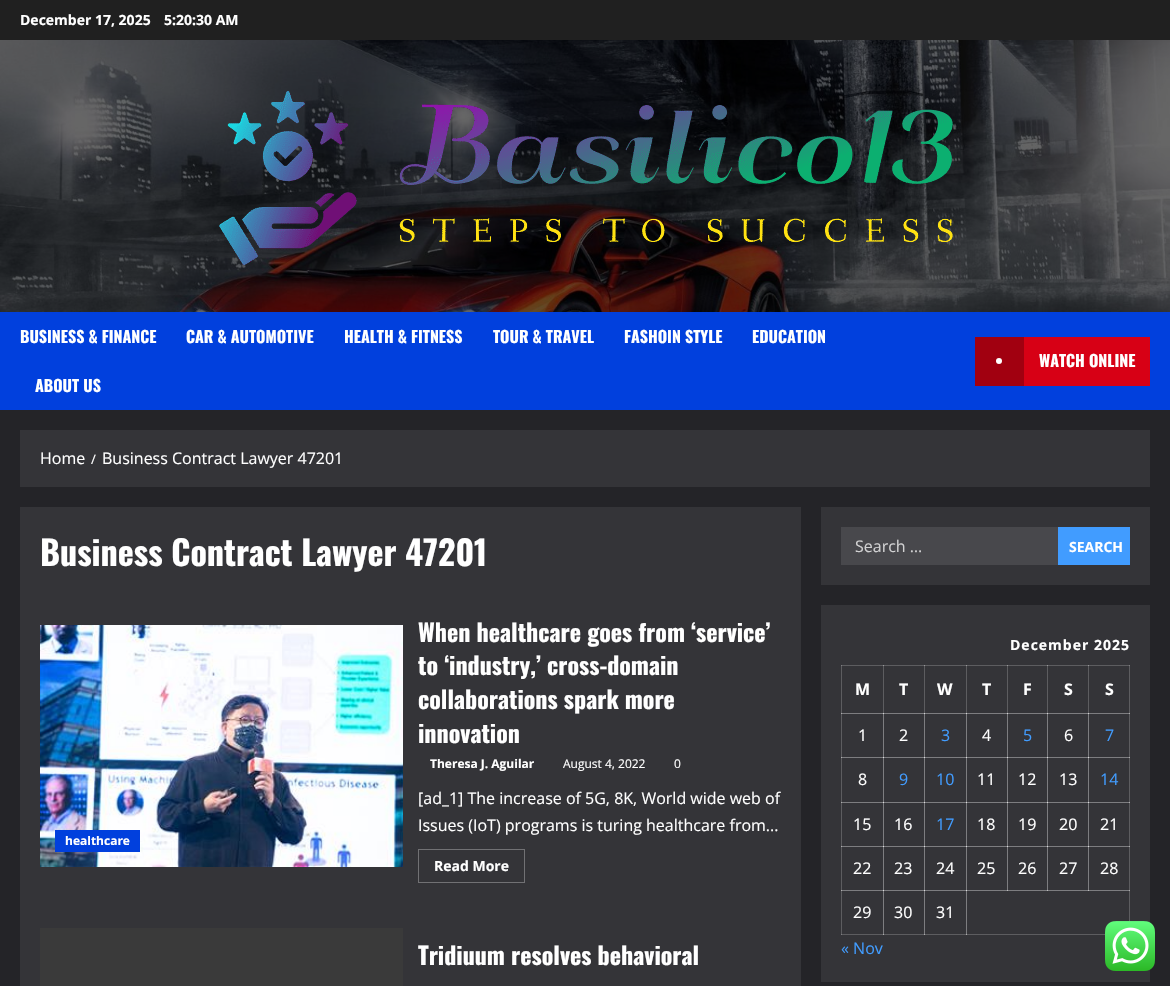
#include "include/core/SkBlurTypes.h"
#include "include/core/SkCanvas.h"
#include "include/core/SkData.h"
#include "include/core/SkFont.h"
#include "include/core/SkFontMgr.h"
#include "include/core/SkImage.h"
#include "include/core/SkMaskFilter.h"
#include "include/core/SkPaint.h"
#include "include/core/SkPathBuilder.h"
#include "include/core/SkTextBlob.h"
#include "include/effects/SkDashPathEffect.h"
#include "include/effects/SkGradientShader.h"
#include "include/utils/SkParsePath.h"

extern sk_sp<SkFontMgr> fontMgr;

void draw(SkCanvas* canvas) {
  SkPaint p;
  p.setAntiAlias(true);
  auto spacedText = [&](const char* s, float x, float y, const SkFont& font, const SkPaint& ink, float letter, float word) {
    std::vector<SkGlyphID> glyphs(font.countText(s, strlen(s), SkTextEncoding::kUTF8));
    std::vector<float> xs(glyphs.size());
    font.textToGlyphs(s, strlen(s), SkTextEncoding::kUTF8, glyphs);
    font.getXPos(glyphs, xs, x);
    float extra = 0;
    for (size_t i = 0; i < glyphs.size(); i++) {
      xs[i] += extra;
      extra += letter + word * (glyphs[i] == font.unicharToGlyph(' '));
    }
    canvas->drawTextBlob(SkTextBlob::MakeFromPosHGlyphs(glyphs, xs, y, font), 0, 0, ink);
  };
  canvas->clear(SkColorSetRGB(36, 36, 40));
  p.setColor(SkColorSetRGB(32, 32, 32));
  canvas->drawRect(SkRect::MakeLTRB(0, 0, 1170, 40), p);
  canvas->drawImageRect(SkImages::DeferredFromEncodedData(SkData::MakeFromFileName("images/1.png")), SkRect::MakeLTRB(0, 40, 1170, 312), SkSamplingOptions());
  canvas->drawImageRect(SkImages::DeferredFromEncodedData(SkData::MakeFromFileName("images/2.png")), SkRect::MakeLTRB(219, 91, 953, 265), SkSamplingOptions());
  p.setColor(SkColorSetRGB(1, 64, 221));
  canvas->drawRect(SkRect::MakeLTRB(0, 312, 1170, 410), p);
  p.setColor(SkColorSetRGB(215, 0, 21));
  canvas->drawRect(SkRect::MakeLTRB(1024, 337, 1150, 386), p);
  p.setColor(SkColorSetRGB(161, 0, 16));
  canvas->drawRect(SkRect::MakeLTRB(975, 337, 1024, 386), p);
  p.setColor(SK_ColorWHITE);
  canvas->drawCircle(999, 361, 3, p);
  p.setColor(SkColorSetRGB(52, 52, 56));
  canvas->drawRect(SkRect::MakeLTRB(20, 430, 1150, 487), p);
  canvas->drawRect(SkRect::MakeLTRB(20, 507, 801, 986), p);
  canvas->drawImageRect(SkImages::DeferredFromEncodedData(SkData::MakeFromFileName("images/3.png")), SkRect::MakeLTRB(40, 625, 403, 867), SkSamplingOptions());
  p.setColor(SkColorSetRGB(1, 64, 221));
  canvas->drawRect(SkRect::MakeLTRB(55, 830, 140, 852), p);
  p.setStyle(SkPaint::kStroke_Style);
  p.setStrokeWidth(1);
  p.setColor(SkColorSetRGB(113, 113, 116));
  canvas->drawRect(SkRect::MakeLTRB(418.5f, 849.5f, 524.5f, 882.5f), p);
  p.setStyle(SkPaint::kFill_Style);
  p.setColor(SkColorSetRGB(58, 58, 58));
  canvas->drawRect(SkRect::MakeLTRB(40, 928, 403, 986), p);
  p.setColor(SkColorSetRGB(52, 52, 56));
  canvas->drawRect(SkRect::MakeLTRB(821, 507, 1150, 585), p);
  p.setColor(SkColorSetRGB(72, 72, 76));
  canvas->drawRect(SkRect::MakeLTRB(841, 527, 1058, 565), p);
  p.setColor(SkColorSetRGB(65, 156, 255));
  canvas->drawRect(SkRect::MakeLTRB(1058, 527, 1130, 565), p);
  p.setColor(SkColorSetRGB(52, 52, 56));
  canvas->drawRect(SkRect::MakeLTRB(821, 605, 1150, 982), p);
  p.setColor(SkColorSetRGB(93, 93, 96));
  canvas->drawRect(SkRect::MakeLTRB(841, 665, 842, 935), p);
  canvas->drawRect(SkRect::MakeLTRB(841, 665, 884, 666), p);
  p.setColor(SkColorSetRGB(125, 125, 128));
  canvas->drawRect(SkRect::MakeLTRB(841, 665, 842, 666), p);
  p.setColor(SkColorSetRGB(93, 93, 96));
  canvas->drawRect(SkRect::MakeLTRB(883, 665, 884, 714), p);
  canvas->drawRect(SkRect::MakeLTRB(883, 665, 925, 666), p);
  p.setColor(SkColorSetRGB(151, 151, 153));
  canvas->drawRect(SkRect::MakeLTRB(883, 665, 884, 666), p);
  p.setColor(SkColorSetRGB(93, 93, 96));
  canvas->drawRect(SkRect::MakeLTRB(924, 665, 925, 714), p);
  canvas->drawRect(SkRect::MakeLTRB(924, 665, 967, 666), p);
  p.setColor(SkColorSetRGB(151, 151, 153));
  canvas->drawRect(SkRect::MakeLTRB(924, 665, 925, 666), p);
  p.setColor(SkColorSetRGB(93, 93, 96));
  canvas->drawRect(SkRect::MakeLTRB(966, 665, 967, 714), p);
  canvas->drawRect(SkRect::MakeLTRB(966, 665, 1008, 666), p);
  p.setColor(SkColorSetRGB(151, 151, 153));
  canvas->drawRect(SkRect::MakeLTRB(966, 665, 967, 666), p);
  p.setColor(SkColorSetRGB(93, 93, 96));
  canvas->drawRect(SkRect::MakeLTRB(1007, 665, 1008, 714), p);
  canvas->drawRect(SkRect::MakeLTRB(1007, 665, 1048, 666), p);
  p.setColor(SkColorSetRGB(151, 151, 153));
  canvas->drawRect(SkRect::MakeLTRB(1007, 665, 1008, 666), p);
  p.setColor(SkColorSetRGB(93, 93, 96));
  canvas->drawRect(SkRect::MakeLTRB(1047, 665, 1048, 714), p);
  canvas->drawRect(SkRect::MakeLTRB(1047, 665, 1089, 666), p);
  p.setColor(SkColorSetRGB(151, 151, 153));
  canvas->drawRect(SkRect::MakeLTRB(1047, 665, 1048, 666), p);
  p.setColor(SkColorSetRGB(93, 93, 96));
  canvas->drawRect(SkRect::MakeLTRB(1088, 665, 1089, 714), p);
  canvas->drawRect(SkRect::MakeLTRB(1129, 665, 1130, 922), p);
  p.setColor(SkColorSetRGB(125, 125, 128));
  canvas->drawRect(SkRect::MakeLTRB(841, 713, 884, 714), p);
  p.setColor(SkColorSetRGB(172, 172, 173));
  canvas->drawRect(SkRect::MakeLTRB(841, 713, 842, 714), p);
  p.setColor(SkColorSetRGB(125, 125, 128));
  canvas->drawRect(SkRect::MakeLTRB(883, 713, 884, 758), p);
  canvas->drawRect(SkRect::MakeLTRB(883, 713, 925, 714), p);
  p.setColor(SkColorSetRGB(213, 213, 213));
  canvas->drawRect(SkRect::MakeLTRB(883, 713, 884, 714), p);
  p.setColor(SkColorSetRGB(125, 125, 128));
  canvas->drawRect(SkRect::MakeLTRB(924, 713, 925, 758), p);
  canvas->drawRect(SkRect::MakeLTRB(924, 713, 967, 714), p);
  p.setColor(SkColorSetRGB(213, 213, 213));
  canvas->drawRect(SkRect::MakeLTRB(924, 713, 925, 714), p);
  p.setColor(SkColorSetRGB(125, 125, 128));
  canvas->drawRect(SkRect::MakeLTRB(966, 713, 967, 758), p);
  canvas->drawRect(SkRect::MakeLTRB(966, 713, 1008, 714), p);
  p.setColor(SkColorSetRGB(213, 213, 213));
  canvas->drawRect(SkRect::MakeLTRB(966, 713, 967, 714), p);
  p.setColor(SkColorSetRGB(125, 125, 128));
  canvas->drawRect(SkRect::MakeLTRB(1007, 713, 1008, 758), p);
  canvas->drawRect(SkRect::MakeLTRB(1007, 713, 1048, 714), p);
  p.setColor(SkColorSetRGB(213, 213, 213));
  canvas->drawRect(SkRect::MakeLTRB(1007, 713, 1008, 714), p);
  p.setColor(SkColorSetRGB(125, 125, 128));
  canvas->drawRect(SkRect::MakeLTRB(1047, 713, 1048, 758), p);
  canvas->drawRect(SkRect::MakeLTRB(1047, 713, 1089, 714), p);
  p.setColor(SkColorSetRGB(213, 213, 213));
  canvas->drawRect(SkRect::MakeLTRB(1047, 713, 1048, 714), p);
  p.setColor(SkColorSetRGB(125, 125, 128));
  canvas->drawRect(SkRect::MakeLTRB(1088, 713, 1089, 758), p);
  canvas->drawRect(SkRect::MakeLTRB(841, 757, 884, 758), p);
  p.setColor(SkColorSetRGB(172, 172, 173));
  canvas->drawRect(SkRect::MakeLTRB(841, 757, 842, 758), p);
  p.setColor(SkColorSetRGB(125, 125, 128));
  canvas->drawRect(SkRect::MakeLTRB(883, 757, 884, 803), p);
  canvas->drawRect(SkRect::MakeLTRB(883, 757, 925, 758), p);
  p.setColor(SkColorSetRGB(221, 221, 221));
  canvas->drawRect(SkRect::MakeLTRB(883, 757, 884, 758), p);
  p.setColor(SkColorSetRGB(125, 125, 128));
  canvas->drawRect(SkRect::MakeLTRB(924, 757, 925, 803), p);
  canvas->drawRect(SkRect::MakeLTRB(924, 757, 967, 758), p);
  p.setColor(SkColorSetRGB(221, 221, 221));
  canvas->drawRect(SkRect::MakeLTRB(924, 757, 925, 758), p);
  p.setColor(SkColorSetRGB(125, 125, 128));
  canvas->drawRect(SkRect::MakeLTRB(966, 757, 967, 803), p);
  canvas->drawRect(SkRect::MakeLTRB(966, 757, 1008, 758), p);
  p.setColor(SkColorSetRGB(221, 221, 221));
  canvas->drawRect(SkRect::MakeLTRB(966, 757, 967, 758), p);
  p.setColor(SkColorSetRGB(125, 125, 128));
  canvas->drawRect(SkRect::MakeLTRB(1007, 757, 1008, 803), p);
  canvas->drawRect(SkRect::MakeLTRB(1007, 757, 1048, 758), p);
  p.setColor(SkColorSetRGB(221, 221, 221));
  canvas->drawRect(SkRect::MakeLTRB(1007, 757, 1008, 758), p);
  p.setColor(SkColorSetRGB(125, 125, 128));
  canvas->drawRect(SkRect::MakeLTRB(1047, 757, 1048, 803), p);
  canvas->drawRect(SkRect::MakeLTRB(1047, 757, 1089, 758), p);
  p.setColor(SkColorSetRGB(221, 221, 221));
  canvas->drawRect(SkRect::MakeLTRB(1047, 757, 1048, 758), p);
  p.setColor(SkColorSetRGB(125, 125, 128));
  canvas->drawRect(SkRect::MakeLTRB(1088, 757, 1089, 803), p);
  canvas->drawRect(SkRect::MakeLTRB(841, 802, 884, 803), p);
  p.setColor(SkColorSetRGB(172, 172, 173));
  canvas->drawRect(SkRect::MakeLTRB(841, 802, 842, 803), p);
  p.setColor(SkColorSetRGB(125, 125, 128));
  canvas->drawRect(SkRect::MakeLTRB(883, 802, 884, 847), p);
  canvas->drawRect(SkRect::MakeLTRB(883, 802, 925, 803), p);
  p.setColor(SkColorSetRGB(221, 221, 221));
  canvas->drawRect(SkRect::MakeLTRB(883, 802, 884, 803), p);
  p.setColor(SkColorSetRGB(125, 125, 128));
  canvas->drawRect(SkRect::MakeLTRB(924, 802, 925, 847), p);
  canvas->drawRect(SkRect::MakeLTRB(924, 802, 967, 803), p);
  p.setColor(SkColorSetRGB(221, 221, 221));
  canvas->drawRect(SkRect::MakeLTRB(924, 802, 925, 803), p);
  p.setColor(SkColorSetRGB(125, 125, 128));
  canvas->drawRect(SkRect::MakeLTRB(966, 802, 967, 847), p);
  canvas->drawRect(SkRect::MakeLTRB(966, 802, 1008, 803), p);
  p.setColor(SkColorSetRGB(221, 221, 221));
  canvas->drawRect(SkRect::MakeLTRB(966, 802, 967, 803), p);
  p.setColor(SkColorSetRGB(125, 125, 128));
  canvas->drawRect(SkRect::MakeLTRB(1007, 802, 1008, 847), p);
  canvas->drawRect(SkRect::MakeLTRB(1007, 802, 1048, 803), p);
  p.setColor(SkColorSetRGB(221, 221, 221));
  canvas->drawRect(SkRect::MakeLTRB(1007, 802, 1008, 803), p);
  p.setColor(SkColorSetRGB(125, 125, 128));
  canvas->drawRect(SkRect::MakeLTRB(1047, 802, 1048, 847), p);
  canvas->drawRect(SkRect::MakeLTRB(1047, 802, 1089, 803), p);
  p.setColor(SkColorSetRGB(221, 221, 221));
  canvas->drawRect(SkRect::MakeLTRB(1047, 802, 1048, 803), p);
  p.setColor(SkColorSetRGB(125, 125, 128));
  canvas->drawRect(SkRect::MakeLTRB(1088, 802, 1089, 847), p);
  canvas->drawRect(SkRect::MakeLTRB(841, 846, 884, 847), p);
  p.setColor(SkColorSetRGB(172, 172, 173));
  canvas->drawRect(SkRect::MakeLTRB(841, 846, 842, 847), p);
  p.setColor(SkColorSetRGB(125, 125, 128));
  canvas->drawRect(SkRect::MakeLTRB(883, 846, 884, 891), p);
  canvas->drawRect(SkRect::MakeLTRB(883, 846, 925, 847), p);
  p.setColor(SkColorSetRGB(221, 221, 221));
  canvas->drawRect(SkRect::MakeLTRB(883, 846, 884, 847), p);
  p.setColor(SkColorSetRGB(125, 125, 128));
  canvas->drawRect(SkRect::MakeLTRB(924, 846, 925, 891), p);
  canvas->drawRect(SkRect::MakeLTRB(924, 846, 967, 847), p);
  p.setColor(SkColorSetRGB(221, 221, 221));
  canvas->drawRect(SkRect::MakeLTRB(924, 846, 925, 847), p);
  p.setColor(SkColorSetRGB(125, 125, 128));
  canvas->drawRect(SkRect::MakeLTRB(966, 846, 967, 891), p);
  canvas->drawRect(SkRect::MakeLTRB(966, 846, 1008, 847), p);
  p.setColor(SkColorSetRGB(221, 221, 221));
  canvas->drawRect(SkRect::MakeLTRB(966, 846, 967, 847), p);
  p.setColor(SkColorSetRGB(125, 125, 128));
  canvas->drawRect(SkRect::MakeLTRB(1007, 846, 1008, 891), p);
  canvas->drawRect(SkRect::MakeLTRB(1007, 846, 1048, 847), p);
  p.setColor(SkColorSetRGB(221, 221, 221));
  canvas->drawRect(SkRect::MakeLTRB(1007, 846, 1008, 847), p);
  p.setColor(SkColorSetRGB(125, 125, 128));
  canvas->drawRect(SkRect::MakeLTRB(1047, 846, 1048, 891), p);
  canvas->drawRect(SkRect::MakeLTRB(1047, 846, 1089, 847), p);
  p.setColor(SkColorSetRGB(221, 221, 221));
  canvas->drawRect(SkRect::MakeLTRB(1047, 846, 1048, 847), p);
  p.setColor(SkColorSetRGB(125, 125, 128));
  canvas->drawRect(SkRect::MakeLTRB(1088, 846, 1089, 891), p);
  p.setColor(SkColorSetRGB(93, 93, 96));
  canvas->drawRect(SkRect::MakeLTRB(841, 934, 884, 935), p);
  p.setColor(SkColorSetRGB(125, 125, 128));
  canvas->drawRect(SkRect::MakeLTRB(841, 934, 842, 935), p);
  canvas->drawRect(SkRect::MakeLTRB(841, 890, 884, 891), p);
  p.setColor(SkColorSetRGB(172, 172, 173));
  canvas->drawRect(SkRect::MakeLTRB(841, 890, 842, 891), p);
  p.setColor(SkColorSetRGB(125, 125, 128));
  canvas->drawRect(SkRect::MakeLTRB(883, 890, 884, 935), p);
  p.setColor(SkColorSetRGB(93, 93, 96));
  canvas->drawRect(SkRect::MakeLTRB(883, 934, 925, 935), p);
  p.setColor(SkColorSetRGB(172, 172, 173));
  canvas->drawRect(SkRect::MakeLTRB(883, 934, 884, 935), p);
  p.setColor(SkColorSetRGB(125, 125, 128));
  canvas->drawRect(SkRect::MakeLTRB(883, 890, 925, 891), p);
  p.setColor(SkColorSetRGB(221, 221, 221));
  canvas->drawRect(SkRect::MakeLTRB(883, 890, 884, 891), p);
  p.setColor(SkColorSetRGB(125, 125, 128));
  canvas->drawRect(SkRect::MakeLTRB(924, 890, 925, 935), p);
  p.setColor(SkColorSetRGB(93, 93, 96));
  canvas->drawRect(SkRect::MakeLTRB(924, 934, 967, 935), p);
  p.setColor(SkColorSetRGB(172, 172, 173));
  canvas->drawRect(SkRect::MakeLTRB(924, 934, 925, 935), p);
  p.setColor(SkColorSetRGB(125, 125, 128));
  canvas->drawRect(SkRect::MakeLTRB(924, 890, 967, 891), p);
  p.setColor(SkColorSetRGB(221, 221, 221));
  canvas->drawRect(SkRect::MakeLTRB(924, 890, 925, 891), p);
  p.setColor(SkColorSetRGB(125, 125, 128));
  canvas->drawRect(SkRect::MakeLTRB(966, 890, 967, 935), p);
  p.setColor(SkColorSetRGB(93, 93, 96));
  canvas->drawRect(SkRect::MakeLTRB(966, 934, 1105, 935), p);
  p.setColor(SkColorSetRGB(172, 172, 173));
  canvas->drawRect(SkRect::MakeLTRB(966, 934, 967, 935), p);
  p.setColor(SkColorSetRGB(93, 93, 96));
  canvas->drawRect(SkRect::MakeLTRB(1088, 665, 1130, 666), p);
  p.setColor(SkColorSetRGB(151, 151, 153));
  canvas->drawRect(SkRect::MakeLTRB(1088, 665, 1089, 666), p);
  p.setColor(SkColorSetRGB(125, 125, 128));
  canvas->drawRect(SkRect::MakeLTRB(1129, 665, 1130, 666), p);
  canvas->drawRect(SkRect::MakeLTRB(1088, 713, 1130, 714), p);
  p.setColor(SkColorSetRGB(213, 213, 213));
  canvas->drawRect(SkRect::MakeLTRB(1088, 713, 1089, 714), p);
  p.setColor(SkColorSetRGB(172, 172, 173));
  canvas->drawRect(SkRect::MakeLTRB(1129, 713, 1130, 714), p);
  p.setColor(SkColorSetRGB(125, 125, 128));
  canvas->drawRect(SkRect::MakeLTRB(1088, 757, 1130, 758), p);
  p.setColor(SkColorSetRGB(221, 221, 221));
  canvas->drawRect(SkRect::MakeLTRB(1088, 757, 1089, 758), p);
  p.setColor(SkColorSetRGB(172, 172, 173));
  canvas->drawRect(SkRect::MakeLTRB(1129, 757, 1130, 758), p);
  p.setColor(SkColorSetRGB(125, 125, 128));
  canvas->drawRect(SkRect::MakeLTRB(1088, 802, 1130, 803), p);
  p.setColor(SkColorSetRGB(221, 221, 221));
  canvas->drawRect(SkRect::MakeLTRB(1088, 802, 1089, 803), p);
  p.setColor(SkColorSetRGB(172, 172, 173));
  canvas->drawRect(SkRect::MakeLTRB(1129, 802, 1130, 803), p);
  p.setColor(SkColorSetRGB(125, 125, 128));
  canvas->drawRect(SkRect::MakeLTRB(1088, 846, 1130, 847), p);
  p.setColor(SkColorSetRGB(221, 221, 221));
  canvas->drawRect(SkRect::MakeLTRB(1088, 846, 1089, 847), p);
  p.setColor(SkColorSetRGB(172, 172, 173));
  canvas->drawRect(SkRect::MakeLTRB(1129, 846, 1130, 847), p);
  p.setColor(SkColorSetRGB(125, 125, 128));
  canvas->drawRect(SkRect::MakeLTRB(966, 890, 1130, 891), p);
  p.setColor(SkColorSetRGB(189, 189, 189));
  canvas->drawRect(SkRect::MakeLTRB(1007, 890, 1008, 891), p);
  canvas->drawRect(SkRect::MakeLTRB(1047, 890, 1048, 891), p);
  canvas->drawRect(SkRect::MakeLTRB(1088, 890, 1089, 891), p);
  p.setColor(SkColorSetRGB(221, 221, 221));
  canvas->drawRect(SkRect::MakeLTRB(966, 890, 967, 891), p);
  p.setColor(SkColorSetRGB(172, 172, 173));
  canvas->drawRect(SkRect::MakeLTRB(1129, 890, 1130, 891), p);
  canvas->drawImageRect(SkImages::DeferredFromEncodedData(SkData::MakeFromFileName("images/4.png")), SkRect::MakeLTRB(1105, 921, 1155, 971), SkSamplingOptions());
  SkFont font1(fontMgr->matchFamilyStyle("Open Sans", SkFontStyle::Bold()), 14);
  font1.setSubpixel(true);
  p.setColor(SK_ColorWHITE);
  canvas->drawString("December 17, 2025", 20, 25, font1, p);
  canvas->drawString("5:20:30 AM", 164, 25, font1, p);
  SkFont font2(fontMgr->matchFamilyStyle("Oswald", SkFontStyle::Bold()), 16);
  font2.setSubpixel(true);
  canvas->drawString("BUSINESS & FINANCE", 20, 343, font2, p);
  canvas->drawString("CAR & AUTOMOTIVE", 186, 343, font2, p);
  canvas->drawString("HEALTH & FITNESS", 344, 343, font2, p);
  canvas->drawString("TOUR & TRAVEL", 493, 343, font2, p);
  canvas->drawString("FASHOIN STYLE", 624, 343, font2, p);
  canvas->drawString("EDUCATION", 752, 343, font2, p);
  canvas->drawString("ABOUT US", 35, 392, font2, p);
  canvas->drawString("WATCH ONLINE", 1039, 367, font2, p);
  SkFont font3(fontMgr->matchFamilyStyle("Open Sans", SkFontStyle::Normal()), 16);
  font3.setSubpixel(true);
  canvas->drawString("Home", 40, 464, font3, p);
  SkFont font4(fontMgr->matchFamilyStyle("Open Sans", SkFontStyle::Normal()), 13);
  font4.setSubpixel(true);
  canvas->drawString("/", 91, 464, font4, p);
  canvas->drawString("Business Contract Lawyer 47201", 102, 464, font3, p);
  SkFont font5(fontMgr->matchFamilyStyle("Oswald", SkFontStyle::Bold()), 34);
  font5.setSubpixel(true);
  canvas->drawString("Business Contract Lawyer 47201", 40, 566, font5, p);
  SkFont font6(fontMgr->matchFamilyStyle("Open Sans", SkFontStyle::Bold()), 12);
  font6.setSubpixel(true);
  canvas->drawString("healthcare", 65, 845, font6, p);
  SkFont font7(fontMgr->matchFamilyStyle("Oswald", SkFontStyle::Bold()), 24);
  font7.setSubpixel(true);
  canvas->drawString("When healthcare goes from ‘service’", 418, 642, font7, p);
  canvas->drawString("to ‘industry,’ cross-domain", 418, 675, font7, p);
  canvas->drawString("collaborations spark more", 418, 709, font7, p);
  canvas->drawString("innovation", 418, 743, font7, p);
  canvas->drawString("Theresa J. Aguilar", 430, 768, font6, p);
  SkFont font8(fontMgr->matchFamilyStyle("Open Sans", SkFontStyle::Normal()), 12);
  font8.setSubpixel(true);
  canvas->drawString("August 4, 2022", 563, 768, font8, p);
  canvas->drawString("0", 674, 768, font8, p);
  canvas->drawString("[ad_1] The increase of 5G, 8K, World wide web of", 418, 804, font3, p);
  canvas->drawString("Issues (IoT) programs is turing healthcare from...", 418, 831, font3, p);
  canvas->drawString("Read More", 434, 871, font1, p);
  canvas->drawString("Tridiuum resolves behavioral", 418, 965, font7, p);
  p.setColor(SkColorSetRGB(209, 209, 210));
  canvas->drawString("Search …", 855, 552, font3, p);
  p.setColor(SK_ColorWHITE);
  canvas->drawString("SEARCH", 1069, 552, font1, p);
  spacedText("December 2025", 1010, 650, font1, p, 1, 0);
  SkFont font9(fontMgr->matchFamilyStyle("Open Sans", SkFontStyle::Bold()), 16);
  font9.setSubpixel(true);
  canvas->drawString("M", 855, 695, font9, p);
  canvas->drawString("T", 899, 695, font9, p);
  canvas->drawString("W", 937, 695, font9, p);
  canvas->drawString("T", 982, 695, font9, p);
  canvas->drawString("F", 1023, 695, font9, p);
  canvas->drawString("S", 1064, 695, font9, p);
  canvas->drawString("S", 1105, 695, font9, p);
  canvas->drawString("1", 858, 741, font3, p);
  canvas->drawString("2", 899, 741, font3, p);
  p.setColor(SkColorSetRGB(65, 156, 255));
  canvas->drawString("3", 941, 741, font3, p);
  p.setColor(SK_ColorWHITE);
  canvas->drawString("4", 982, 741, font3, p);
  p.setColor(SkColorSetRGB(65, 156, 255));
  canvas->drawString("5", 1023, 741, font3, p);
  p.setColor(SK_ColorWHITE);
  canvas->drawString("6", 1064, 741, font3, p);
  p.setColor(SkColorSetRGB(65, 156, 255));
  canvas->drawString("7", 1105, 741, font3, p);
  p.setColor(SK_ColorWHITE);
  canvas->drawString("8", 858, 785, font3, p);
  p.setColor(SkColorSetRGB(65, 156, 255));
  canvas->drawString("9", 899, 785, font3, p);
  canvas->drawString("10", 936, 785, font3, p);
  p.setColor(SK_ColorWHITE);
  canvas->drawString("11", 977, 785, font3, p);
  canvas->drawString("12", 1018, 785, font3, p);
  canvas->drawString("13", 1059, 785, font3, p);
  p.setColor(SkColorSetRGB(65, 156, 255));
  canvas->drawString("14", 1100, 785, font3, p);
  p.setColor(SK_ColorWHITE);
  canvas->drawString("15", 853, 830, font3, p);
  canvas->drawString("16", 894, 830, font3, p);
  p.setColor(SkColorSetRGB(65, 156, 255));
  canvas->drawString("17", 936, 830, font3, p);
  p.setColor(SK_ColorWHITE);
  canvas->drawString("18", 977, 830, font3, p);
  canvas->drawString("19", 1018, 830, font3, p);
  canvas->drawString("20", 1059, 830, font3, p);
  canvas->drawString("21", 1100, 830, font3, p);
  canvas->drawString("22", 853, 874, font3, p);
  canvas->drawString("23", 894, 874, font3, p);
  canvas->drawString("24", 936, 874, font3, p);
  canvas->drawString("25", 977, 874, font3, p);
  canvas->drawString("26", 1018, 874, font3, p);
  canvas->drawString("27", 1059, 874, font3, p);
  canvas->drawString("28", 1100, 874, font3, p);
  canvas->drawString("29", 853, 918, font3, p);
  canvas->drawString("30", 894, 918, font3, p);
  canvas->drawString("31", 936, 918, font3, p);
  p.setColor(SkColorSetRGB(65, 156, 255));
  canvas->drawString("« Nov", 841, 954, font3, p);
}
